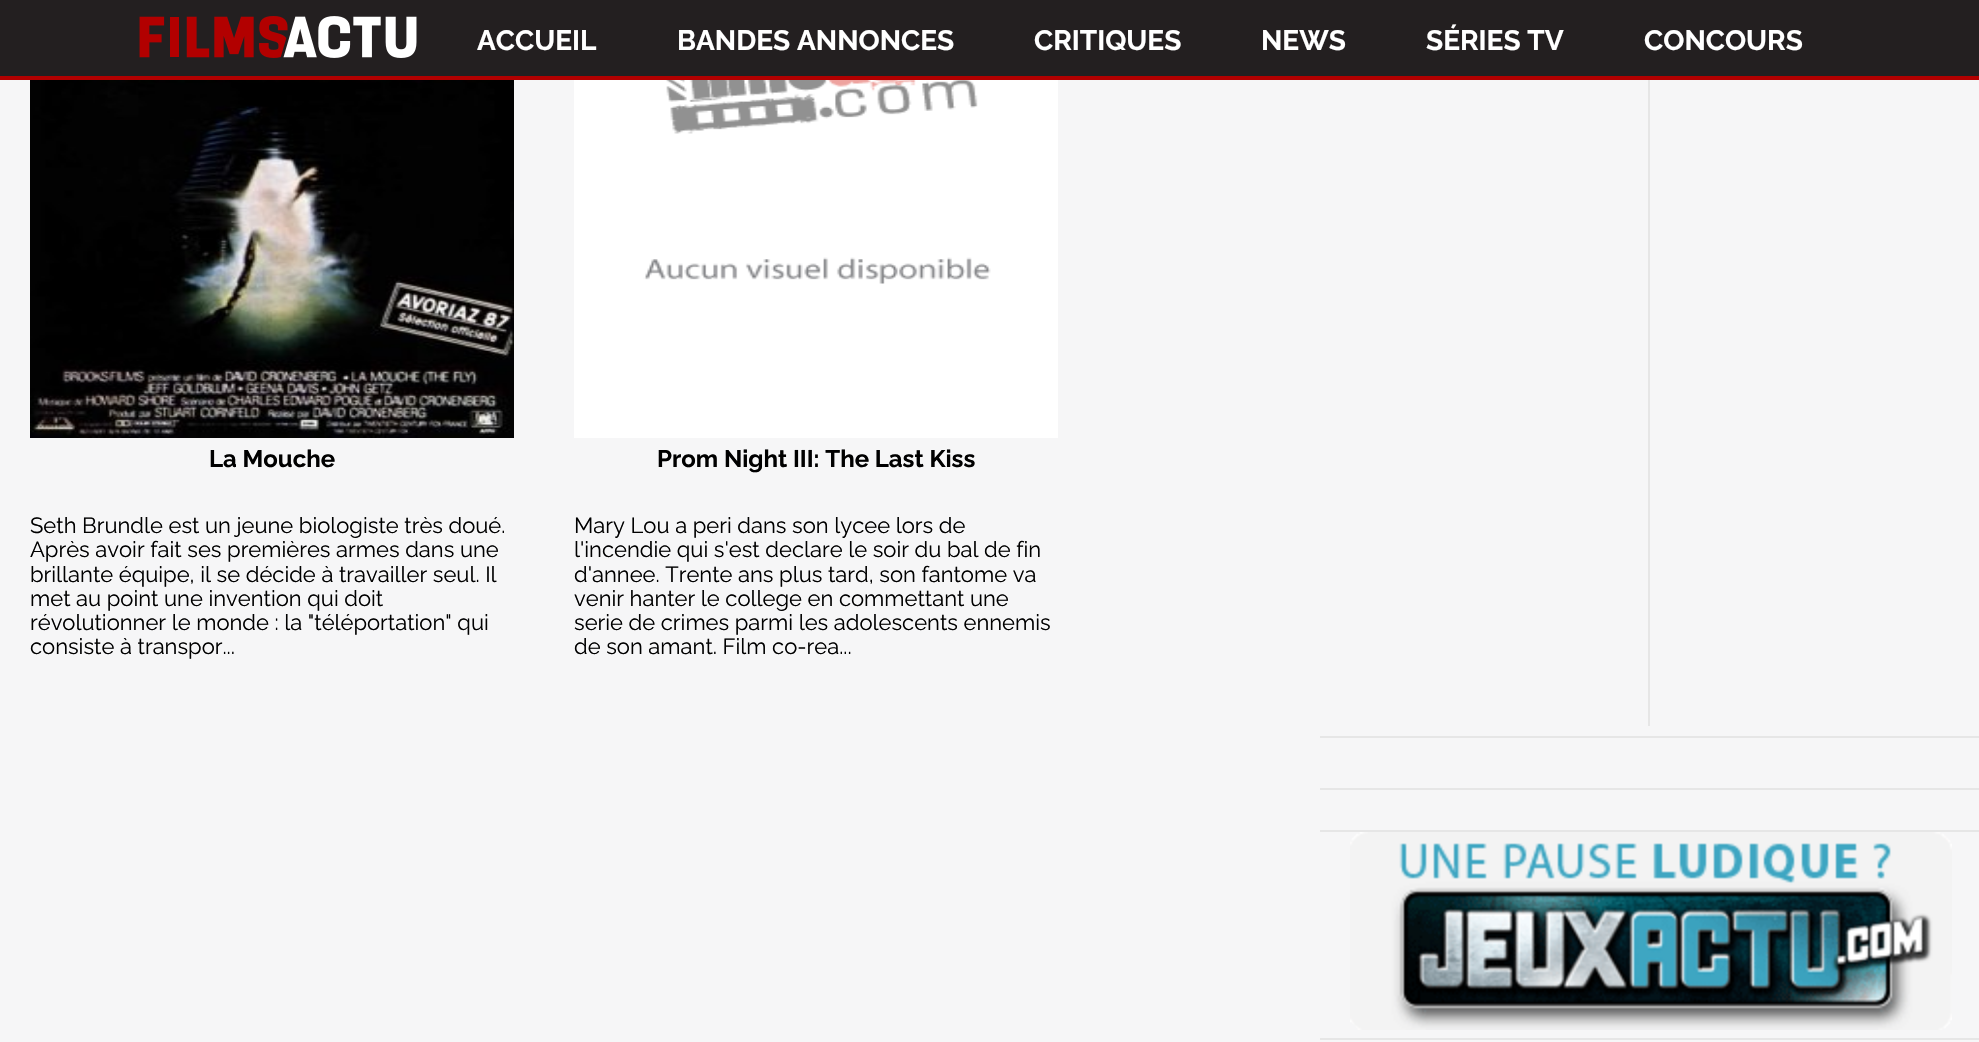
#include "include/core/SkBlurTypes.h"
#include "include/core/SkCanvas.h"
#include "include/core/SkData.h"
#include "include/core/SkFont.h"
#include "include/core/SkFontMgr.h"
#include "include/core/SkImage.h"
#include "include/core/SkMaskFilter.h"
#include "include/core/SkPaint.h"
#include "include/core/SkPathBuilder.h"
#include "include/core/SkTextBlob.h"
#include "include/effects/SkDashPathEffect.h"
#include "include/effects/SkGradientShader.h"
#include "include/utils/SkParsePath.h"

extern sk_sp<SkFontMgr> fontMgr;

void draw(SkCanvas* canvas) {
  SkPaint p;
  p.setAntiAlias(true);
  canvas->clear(SkColorSetRGB(246, 246, 247));
  p.setColor(SkColorSetRGB(35, 31, 32));
  canvas->drawRect(SkRect::MakeLTRB(0, 0, 1979, 76), p);
  p.setColor(SkColorSetRGB(178, 0, 0));
  canvas->drawRect(SkRect::MakeLTRB(0, 76, 1979, 80), p);
  canvas->drawImageRect(SkImages::DeferredFromEncodedData(SkData::MakeFromFileName("images/1.png")), SkRect::MakeLTRB(139, 16, 417, 58), SkSamplingOptions());
  p.setColor(SkColorSetRGB(230, 230, 230));
  canvas->drawRect(SkRect::MakeLTRB(1648, 80, 1650, 726), p);
  canvas->drawImageRect(SkImages::DeferredFromEncodedData(SkData::MakeFromFileName("images/2.png")), SkRect::MakeLTRB(30, 80, 514, 438), SkSamplingOptions());
  canvas->drawImageRect(SkImages::DeferredFromEncodedData(SkData::MakeFromFileName("images/3.png")), SkRect::MakeLTRB(574, 80, 1058, 438), SkSamplingOptions());
  canvas->drawRect(SkRect::MakeLTRB(1320, 736, 1979, 738), p);
  canvas->drawRect(SkRect::MakeLTRB(1320, 788, 1979, 790), p);
  canvas->drawRect(SkRect::MakeLTRB(1320, 830, 1979, 832), p);
  canvas->drawImageRect(SkImages::DeferredFromEncodedData(SkData::MakeFromFileName("images/4.png")), SkRect::MakeLTRB(1350, 832, 1952, 1030), SkSamplingOptions());
  canvas->drawRect(SkRect::MakeLTRB(1320, 1038, 1979, 1040), p);
  SkFont font1(fontMgr->matchFamilyStyle("Raleway", SkFontStyle::Bold()), 28);
  font1.setSubpixel(true);
  p.setColor(SK_ColorWHITE);
  canvas->drawString("ACCUEIL", 477, 50, font1, p);
  canvas->drawString("BANDES ANNONCES", 677, 50, font1, p);
  canvas->drawString("CRITIQUES", 1034, 50, font1, p);
  canvas->drawString("NEWS", 1261, 50, font1, p);
  canvas->drawString("SÉRIES TV", 1426, 50, font1, p);
  canvas->drawString("CONCOURS", 1644, 50, font1, p);
  SkFont font2(fontMgr->matchFamilyStyle("Raleway", SkFontStyle::Bold()), 24);
  font2.setSubpixel(true);
  p.setColor(SK_ColorBLACK);
  canvas->drawString("La Mouche", 209, 467, font2, p);
  SkFont font3(fontMgr->matchFamilyStyle("Raleway", SkFontStyle::Normal()), 22);
  font3.setSubpixel(true);
  canvas->drawString("Seth Brundle est un jeune biologiste très doué.", 30, 533, font3, p);
  canvas->drawString("Après avoir fait ses premières armes dans une", 30, 557, font3, p);
  canvas->drawString("brillante équipe, il se décide à travailler seul. Il", 30, 582, font3, p);
  canvas->drawString("met au point une invention qui doit", 30, 606, font3, p);
  canvas->drawString("révolutionner le monde : la \"téléportation\" qui", 30, 630, font3, p);
  canvas->drawString("consiste à transpor...", 30, 654, font3, p);
  canvas->drawString("Prom Night III: The Last Kiss", 657, 467, font2, p);
  canvas->drawString("Mary Lou a peri dans son lycee lors de", 574, 533, font3, p);
  canvas->drawString("l'incendie qui s'est declare le soir du bal de fin", 574, 557, font3, p);
  canvas->drawString("d'annee. Trente ans plus tard, son fantome va", 574, 582, font3, p);
  canvas->drawString("venir hanter le college en commettant une", 574, 606, font3, p);
  canvas->drawString("serie de crimes parmi les adolescents ennemis", 574, 630, font3, p);
  canvas->drawString("de son amant. Film co-rea...", 574, 654, font3, p);
}
